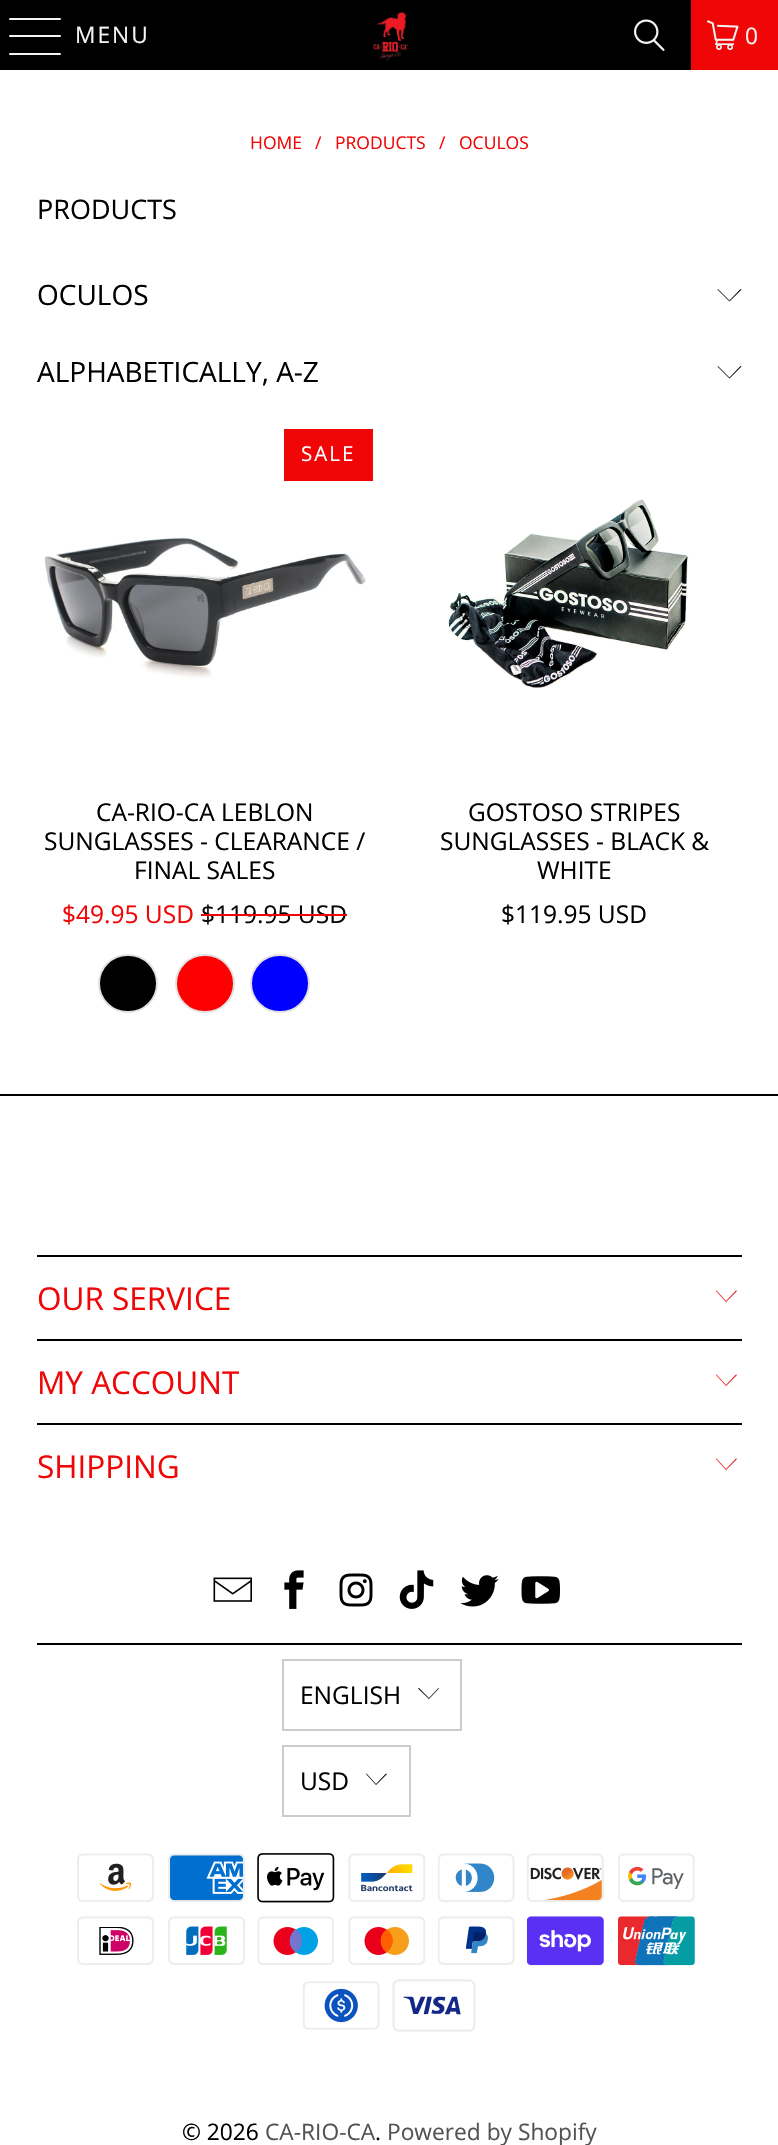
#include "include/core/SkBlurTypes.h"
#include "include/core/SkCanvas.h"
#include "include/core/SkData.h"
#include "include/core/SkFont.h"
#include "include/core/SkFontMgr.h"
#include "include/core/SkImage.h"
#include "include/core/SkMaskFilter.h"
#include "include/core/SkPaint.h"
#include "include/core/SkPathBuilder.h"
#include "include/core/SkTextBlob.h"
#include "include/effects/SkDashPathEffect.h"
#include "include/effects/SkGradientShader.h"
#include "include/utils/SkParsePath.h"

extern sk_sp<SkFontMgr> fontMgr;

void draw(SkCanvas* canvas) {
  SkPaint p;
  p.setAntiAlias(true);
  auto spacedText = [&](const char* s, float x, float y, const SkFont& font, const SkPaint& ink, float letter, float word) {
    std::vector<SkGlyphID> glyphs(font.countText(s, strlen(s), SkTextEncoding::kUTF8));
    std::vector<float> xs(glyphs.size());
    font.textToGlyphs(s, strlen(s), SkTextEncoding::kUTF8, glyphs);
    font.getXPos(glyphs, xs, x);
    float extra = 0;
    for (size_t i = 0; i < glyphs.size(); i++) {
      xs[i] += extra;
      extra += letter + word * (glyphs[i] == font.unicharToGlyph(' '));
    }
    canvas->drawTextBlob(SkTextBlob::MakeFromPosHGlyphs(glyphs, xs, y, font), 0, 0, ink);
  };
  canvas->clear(SK_ColorWHITE);
  p.setColor(SK_ColorBLACK);
  canvas->drawRect(SkRect::MakeLTRB(0, 0, 691, 70), p);
  p.setColor(SkColorSetRGB(244, 244, 244));
  canvas->drawRoundRect(SkRect::MakeLTRB(9, 18, 61, 20), 1, 1, p);
  canvas->drawRoundRect(SkRect::MakeLTRB(9, 35, 61, 37), 1, 1, p);
  canvas->drawRoundRect(SkRect::MakeLTRB(9, 53, 61, 55), 1, 1, p);
  canvas->drawImageRect(SkImages::DeferredFromEncodedData(SkData::MakeFromFileName("images/1.png")), SkRect::MakeLTRB(373, 11, 409, 61), SkSamplingOptions());
  canvas->drawImageRect(SkImages::DeferredFromEncodedData(SkData::MakeFromFileName("images/2.png")), SkRect::MakeLTRB(634, 19, 665, 51), SkSamplingOptions());
  p.setColor(SkColorSetRGB(240, 6, 6));
  canvas->drawRect(SkRect::MakeLTRB(691, 0, 778, 70), p);
  canvas->drawImageRect(SkImages::DeferredFromEncodedData(SkData::MakeFromFileName("images/3.png")), SkRect::MakeLTRB(707, 20, 739, 50), SkSamplingOptions());
  p.setColor(SK_ColorBLACK);
  canvas->drawPath(SkPathBuilder().moveTo(729.5f, 301.5f).lineTo(717.5f, 289.5f).lineTo(718, 289).lineTo(729.5f, 300.5f).lineTo(740.5f, 289).lineTo(741.5f, 289.5f).close().detach(), p);
  canvas->drawPath(SkPathBuilder().moveTo(729.5f, 378.5f).lineTo(717.5f, 366.5f).lineTo(718, 366).lineTo(729.5f, 377.5f).lineTo(740.5f, 366).lineTo(741.5f, 366.5f).close().detach(), p);
  p.setColor(SkColorSetRGB(240, 6, 6));
  canvas->drawRect(SkRect::MakeLTRB(284, 429, 373, 481), p);
  canvas->drawImageRect(SkImages::DeferredFromEncodedData(SkData::MakeFromFileName("images/4.png")), SkRect::MakeLTRB(44, 536, 366, 679), SkSamplingOptions());
  p.setColor(SK_ColorBLACK);
  canvas->drawRoundRect(SkRect::MakeLTRB(99, 955, 157, 1012), 28.5f, 28.5f, p);
  p.setStyle(SkPaint::kStroke_Style);
  p.setStrokeWidth(2);
  p.setColor(SkColorSetRGB(226, 226, 226));
  canvas->drawRoundRect(SkRect::MakeLTRB(99, 955, 157, 1012), 28.5f, 28.5f, p);
  p.setStyle(SkPaint::kFill_Style);
  p.setColor(SkColorSetRGB(255, 0, 0));
  canvas->drawRoundRect(SkRect::MakeLTRB(176, 955, 234, 1012), 28.5f, 28.5f, p);
  p.setStyle(SkPaint::kStroke_Style);
  p.setColor(SkColorSetRGB(226, 226, 226));
  canvas->drawRoundRect(SkRect::MakeLTRB(176, 955, 234, 1012), 28.5f, 28.5f, p);
  p.setStyle(SkPaint::kFill_Style);
  p.setColor(SkColorSetRGB(0, 0, 255));
  canvas->drawRoundRect(SkRect::MakeLTRB(251, 955, 309, 1012), 28.5f, 28.5f, p);
  p.setStyle(SkPaint::kStroke_Style);
  p.setColor(SkColorSetRGB(226, 226, 226));
  canvas->drawRoundRect(SkRect::MakeLTRB(251, 955, 309, 1012), 28.5f, 28.5f, p);
  canvas->drawImageRect(SkImages::DeferredFromEncodedData(SkData::MakeFromFileName("images/5.png")), SkRect::MakeLTRB(448, 499, 689, 688), SkSamplingOptions());
  p.setStyle(SkPaint::kFill_Style);
  p.setColor(SK_ColorBLACK);
  canvas->drawRect(SkRect::MakeLTRB(0, 1094, 778, 1096), p);
  canvas->drawRect(SkRect::MakeLTRB(37, 1255, 742, 1257), p);
  p.setColor(SkColorSetRGB(240, 6, 6));
  canvas->drawPath(SkPathBuilder().moveTo(726, 1302).lineTo(716, 1291).lineTo(716.5f, 1290.5f).lineTo(726, 1301).lineTo(736, 1290.5f).lineTo(737, 1291).close().detach(), p);
  p.setColor(SK_ColorBLACK);
  canvas->drawRect(SkRect::MakeLTRB(37, 1339, 742, 1341), p);
  p.setColor(SkColorSetRGB(240, 6, 6));
  canvas->drawPath(SkPathBuilder().moveTo(726, 1386).lineTo(716, 1375).lineTo(716.5f, 1374.5f).lineTo(726, 1385).lineTo(736, 1374.5f).lineTo(737, 1375).close().detach(), p);
  p.setColor(SK_ColorBLACK);
  canvas->drawRect(SkRect::MakeLTRB(37, 1423, 742, 1425), p);
  p.setColor(SkColorSetRGB(240, 6, 6));
  canvas->drawPath(SkPathBuilder().moveTo(726, 1470).lineTo(716, 1459).lineTo(716.5f, 1458.5f).lineTo(726, 1469).lineTo(736, 1458.5f).lineTo(737, 1459).close().detach(), p);
  canvas->drawImageRect(SkImages::DeferredFromEncodedData(SkData::MakeFromFileName("images/6.png")), SkRect::MakeLTRB(213, 1577, 252, 1602), SkSamplingOptions());
  canvas->drawImageRect(SkImages::DeferredFromEncodedData(SkData::MakeFromFileName("images/7.png")), SkRect::MakeLTRB(284, 1570, 304, 1609), SkSamplingOptions());
  canvas->drawImageRect(SkImages::DeferredFromEncodedData(SkData::MakeFromFileName("images/8.png")), SkRect::MakeLTRB(339, 1573, 373, 1607), SkSamplingOptions());
  canvas->drawImageRect(SkImages::DeferredFromEncodedData(SkData::MakeFromFileName("images/9.png")), SkRect::MakeLTRB(399, 1570, 434, 1609), SkSamplingOptions());
  canvas->drawImageRect(SkImages::DeferredFromEncodedData(SkData::MakeFromFileName("images/10.png")), SkRect::MakeLTRB(460, 1575, 499, 1607), SkSamplingOptions());
  canvas->drawImageRect(SkImages::DeferredFromEncodedData(SkData::MakeFromFileName("images/11.png")), SkRect::MakeLTRB(521, 1576, 560, 1604), SkSamplingOptions());
  p.setColor(SK_ColorBLACK);
  canvas->drawRect(SkRect::MakeLTRB(37, 1643, 742, 1645), p);
  p.setStyle(SkPaint::kStroke_Style);
  p.setColor(SkColorSetRGB(204, 204, 204));
  canvas->drawRect(SkRect::MakeLTRB(283, 1660, 461, 1730), p);
  p.setStyle(SkPaint::kFill_Style);
  p.setColor(SK_ColorBLACK);
  canvas->drawPath(SkPathBuilder().moveTo(429, 1699).lineTo(418, 1688.5f).lineTo(419, 1688).lineTo(429, 1698).lineTo(438.5f, 1688).lineTo(439, 1688.5f).close().detach(), p);
  p.setStyle(SkPaint::kStroke_Style);
  p.setColor(SkColorSetRGB(204, 204, 204));
  canvas->drawRect(SkRect::MakeLTRB(283, 1746, 410, 1816), p);
  p.setStyle(SkPaint::kFill_Style);
  p.setColor(SK_ColorBLACK);
  canvas->drawPath(SkPathBuilder().moveTo(376, 1785).lineTo(366, 1774).lineTo(366.5f, 1773.5f).lineTo(376, 1784).lineTo(386, 1773.5f).lineTo(387, 1774).close().detach(), p);
  canvas->drawImageRect(SkImages::DeferredFromEncodedData(SkData::MakeFromFileName("images/12.png")), SkRect::MakeLTRB(77, 1853, 154, 1902), SkSamplingOptions());
  canvas->drawImageRect(SkImages::DeferredFromEncodedData(SkData::MakeFromFileName("images/13.png")), SkRect::MakeLTRB(168, 1853, 245, 1902), SkSamplingOptions());
  canvas->drawImageRect(SkImages::DeferredFromEncodedData(SkData::MakeFromFileName("images/14.png")), SkRect::MakeLTRB(257, 1853, 335, 1903), SkSamplingOptions());
  canvas->drawImageRect(SkImages::DeferredFromEncodedData(SkData::MakeFromFileName("images/15.png")), SkRect::MakeLTRB(348, 1853, 425, 1902), SkSamplingOptions());
  canvas->drawImageRect(SkImages::DeferredFromEncodedData(SkData::MakeFromFileName("images/16.png")), SkRect::MakeLTRB(438, 1853, 515, 1902), SkSamplingOptions());
  canvas->drawImageRect(SkImages::DeferredFromEncodedData(SkData::MakeFromFileName("images/17.png")), SkRect::MakeLTRB(527, 1853, 604, 1902), SkSamplingOptions());
  canvas->drawImageRect(SkImages::DeferredFromEncodedData(SkData::MakeFromFileName("images/18.png")), SkRect::MakeLTRB(618, 1853, 695, 1902), SkSamplingOptions());
  canvas->drawImageRect(SkImages::DeferredFromEncodedData(SkData::MakeFromFileName("images/19.png")), SkRect::MakeLTRB(77, 1916, 154, 1965), SkSamplingOptions());
  canvas->drawImageRect(SkImages::DeferredFromEncodedData(SkData::MakeFromFileName("images/20.png")), SkRect::MakeLTRB(168, 1916, 245, 1965), SkSamplingOptions());
  canvas->drawImageRect(SkImages::DeferredFromEncodedData(SkData::MakeFromFileName("images/21.png")), SkRect::MakeLTRB(257, 1916, 334, 1965), SkSamplingOptions());
  canvas->drawImageRect(SkImages::DeferredFromEncodedData(SkData::MakeFromFileName("images/22.png")), SkRect::MakeLTRB(348, 1916, 425, 1965), SkSamplingOptions());
  canvas->drawImageRect(SkImages::DeferredFromEncodedData(SkData::MakeFromFileName("images/23.png")), SkRect::MakeLTRB(438, 1916, 515, 1965), SkSamplingOptions());
  canvas->drawImageRect(SkImages::DeferredFromEncodedData(SkData::MakeFromFileName("images/24.png")), SkRect::MakeLTRB(527, 1916, 604, 1966), SkSamplingOptions());
  canvas->drawImageRect(SkImages::DeferredFromEncodedData(SkData::MakeFromFileName("images/25.png")), SkRect::MakeLTRB(618, 1916, 695, 1966), SkSamplingOptions());
  canvas->drawImageRect(SkImages::DeferredFromEncodedData(SkData::MakeFromFileName("images/26.png")), SkRect::MakeLTRB(303, 1981, 380, 2030), SkSamplingOptions());
  canvas->drawImageRect(SkImages::DeferredFromEncodedData(SkData::MakeFromFileName("images/27.png")), SkRect::MakeLTRB(392, 1979, 476, 2032), SkSamplingOptions());
  SkFont font1(fontMgr->matchFamilyStyle("Open Sans", SkFontStyle::Normal()), 22.75f);
  font1.setSubpixel(true);
  p.setColor(SkColorSetRGB(244, 244, 244));
  spacedText("MENU", 75, 43, font1, p, 2, 0);
  spacedText("0", 745, 44, font1, p, 2, 0);
  SkFont font2(fontMgr->matchFamilyStyle("Open Sans", SkFontStyle::Normal()), 17.5f);
  font2.setSubpixel(true);
  p.setColor(SkColorSetRGB(240, 6, 6));
  canvas->drawString("HOME", 250, 149, font2, p);
  canvas->drawString("/", 315, 149, font2, p);
  canvas->drawString("PRODUCTS", 335, 149, font2, p);
  canvas->drawString("/", 439, 149, font2, p);
  canvas->drawString("OCULOS", 459, 149, font2, p);
  SkFont font3(fontMgr->matchFamilyStyle("Open Sans", SkFontStyle::Normal()), 27);
  font3.setSubpixel(true);
  p.setColor(SK_ColorBLACK);
  canvas->drawString("PRODUCTS", 37, 219, font3, p);
  SkFont font4(fontMgr->matchFamilyStyle("Open Sans", SkFontStyle::Normal()), 28);
  font4.setSubpixel(true);
  canvas->drawString("OCULOS", 37, 305, font4, p);
  canvas->drawString("ALPHABETICALLY, A-Z", 37, 382, font4, p);
  SkFont font5(fontMgr->matchFamilyStyle("Open Sans", SkFontStyle::Normal()), 20.5f);
  font5.setSubpixel(true);
  p.setColor(SK_ColorWHITE);
  spacedText("SALE", 301, 461, font5, p, 2, 0);
  SkFont font6(fontMgr->matchFamilyStyle("Open Sans", SkFontStyle::Normal()), 24.5f);
  font6.setSubpixel(true);
  p.setColor(SK_ColorBLACK);
  canvas->drawString("CA-RIO-CA LEBLON", 96, 821, font6, p);
  canvas->drawString("SUNGLASSES - CLEARANCE /", 44, 850, font6, p);
  canvas->drawString("FINAL SALES", 134, 879, font6, p);
  p.setColor(SkColorSetRGB(240, 6, 6));
  canvas->drawString("$49.95 USD", 62, 923, font6, p);
  p.setColor(SkColorSetRGB(8, 7, 7));
  canvas->drawString("$119.95 USD", 201, 923, font6, p);
  p.setColor(SkColorSetRGB(240, 6, 6));
  canvas->drawRect(SkRect::MakeLTRB(201, 914, 347, 916), p);
  p.setColor(SK_ColorBLACK);
  canvas->drawString("GOSTOSO STRIPES", 468, 821, font6, p);
  canvas->drawString("SUNGLASSES - BLACK &", 440, 850, font6, p);
  canvas->drawString("WHITE", 537, 879, font6, p);
  canvas->drawString("$119.95 USD", 501, 923, font6, p);
  SkFont font7(fontMgr->matchFamilyStyle("Open Sans", SkFontStyle::Normal()), 31.5f);
  font7.setSubpixel(true);
  p.setColor(SkColorSetRGB(240, 6, 6));
  canvas->drawString("OUR SERVICE", 37, 1310, font7, p);
  canvas->drawString("MY ACCOUNT", 37, 1394, font7, p);
  canvas->drawString("SHIPPING", 37, 1478, font7, p);
  p.setColor(SK_ColorBLACK);
  canvas->drawString("ENGLISH", 300, 1704, font6, p);
  canvas->drawString("USD", 300, 1790, font6, p);
  canvas->drawString("© 2026", 182, 2140, font1, p);
  p.setColor(SkColorSetRGB(86, 82, 82));
  canvas->drawString("CA-RIO-CA", 265, 2140, font1, p);
  p.setColor(SK_ColorBLACK);
  canvas->drawString(".", 375, 2140, font1, p);
  p.setColor(SkColorSetRGB(86, 82, 82));
  canvas->drawString("Powered by Shopify", 387, 2140, font1, p);
}
